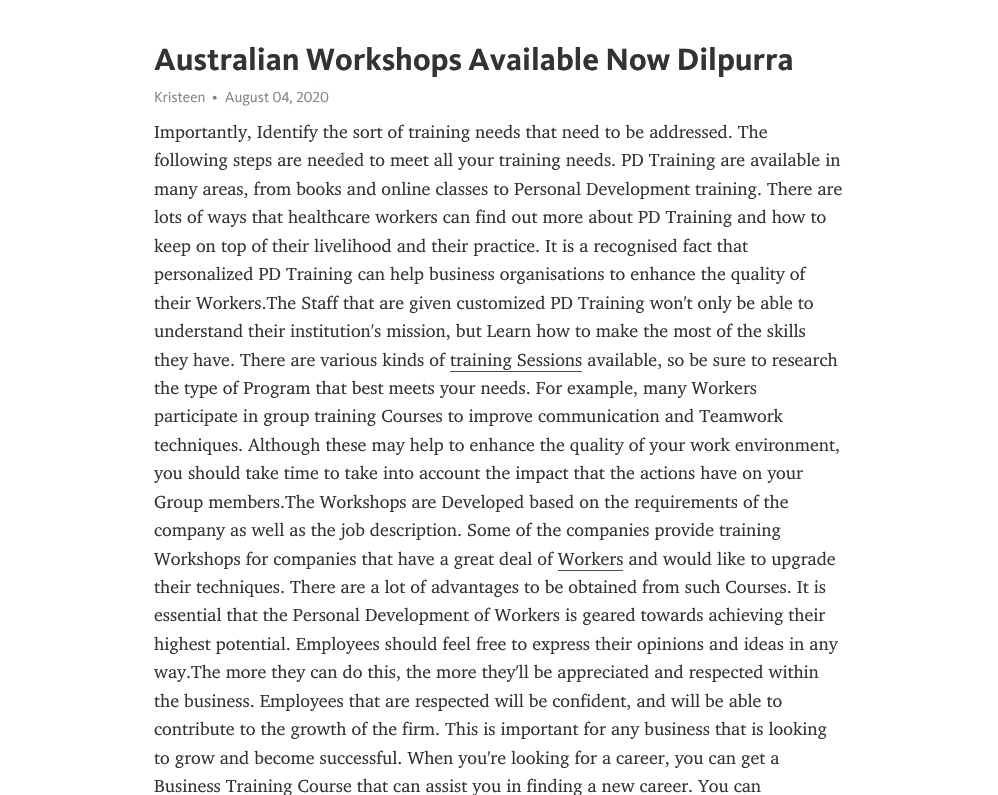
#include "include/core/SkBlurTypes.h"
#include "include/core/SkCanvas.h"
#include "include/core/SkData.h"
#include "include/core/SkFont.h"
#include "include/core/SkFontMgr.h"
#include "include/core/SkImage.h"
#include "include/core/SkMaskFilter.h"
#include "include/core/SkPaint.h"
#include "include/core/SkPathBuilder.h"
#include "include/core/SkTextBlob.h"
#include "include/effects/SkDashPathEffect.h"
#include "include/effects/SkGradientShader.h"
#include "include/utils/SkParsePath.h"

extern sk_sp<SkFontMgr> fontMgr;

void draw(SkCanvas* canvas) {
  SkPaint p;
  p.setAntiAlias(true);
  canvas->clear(SK_ColorWHITE);
  p.setColor(SkColorSetRGB(77, 77, 77));
  canvas->drawRect(SkRect::MakeLTRB(450, 371, 582, 372), p);
  canvas->drawRect(SkRect::MakeLTRB(558, 570, 623, 571), p);
  SkFont font1(fontMgr->matchFamilyStyle("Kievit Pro", SkFontStyle::Bold()), 32);
  font1.setSubpixel(true);
  p.setColor(SkColorSetRGB(51, 51, 51));
  canvas->drawString("Australian Workshops Available Now Dilpurra", 154, 70, font1, p);
  SkFont font2(fontMgr->matchFamilyStyle("Kievit Pro", SkFontStyle::Normal()), 15);
  font2.setSubpixel(true);
  p.setColor(SkColorSetRGB(121, 130, 139));
  canvas->drawString("Kristeen", 154, 102, font2, p);
  canvas->drawString("•", 212, 102, font2, p);
  canvas->drawString("August 04, 2020", 225, 102, font2, p);
  SkFont font3(fontMgr->matchFamilyStyle("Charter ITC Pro", SkFontStyle::Normal()), 18);
  font3.setSubpixel(true);
  p.setColor(SkColorSetRGB(51, 51, 51));
  canvas->drawString("Importantly, Identify the sort of training needs that need to be addressed. The", 154, 138, font3, p);
  canvas->drawString("following steps are needed to meet all your training needs. PD Training are available in", 154, 166, font3, p);
  canvas->drawString("many areas, from books and online classes to Personal Development training. There are", 154, 195, font3, p);
  canvas->drawString("lots of ways that healthcare workers can find out more about PD Training and how to", 154, 223, font3, p);
  canvas->drawString("keep on top of their livelihood and their practice. It is a recognised fact that", 154, 252, font3, p);
  canvas->drawString("personalized PD Training can help business organisations to enhance the quality of", 154, 280, font3, p);
  canvas->drawString("their Workers.The Staff that are given customized PD Training won't only be able to", 154, 309, font3, p);
  canvas->drawString("understand their institution's mission, but Learn how to make the most of the skills", 154, 337, font3, p);
  canvas->drawString("they have. There are various kinds of training Sessions available, so be sure to research", 154, 366, font3, p);
  canvas->drawString("the type of Program that best meets your needs. For example, many Workers", 154, 394, font3, p);
  canvas->drawString("participate in group training Courses to improve communication and Teamwork", 154, 422, font3, p);
  canvas->drawString("techniques. Although these may help to enhance the quality of your work environment,", 154, 451, font3, p);
  canvas->drawString("you should take time to take into account the impact that the actions have on your", 154, 479, font3, p);
  canvas->drawString("Group members.The Workshops are Developed based on the requirements of the", 154, 508, font3, p);
  canvas->drawString("company as well as the job description. Some of the companies provide training", 154, 536, font3, p);
  canvas->drawString("Workshops for companies that have a great deal of Workers and would like to upgrade", 154, 565, font3, p);
  canvas->drawString("their techniques. There are a lot of advantages to be obtained from such Courses. It is", 154, 593, font3, p);
  canvas->drawString("essential that the Personal Development of Workers is geared towards achieving their", 154, 621, font3, p);
  canvas->drawString("highest potential. Employees should feel free to express their opinions and ideas in any", 154, 650, font3, p);
  canvas->drawString("way.The more they can do this, the more they'll be appreciated and respected within", 154, 678, font3, p);
  canvas->drawString("the business. Employees that are respected will be confident, and will be able to", 154, 707, font3, p);
  canvas->drawString("contribute to the growth of the firm. This is important for any business that is looking", 154, 735, font3, p);
  canvas->drawString("to grow and become successful. When you're looking for a career, you can get a", 154, 764, font3, p);
  canvas->drawString("Business Training Course that can assist you in finding a new career. You can", 154, 792, font3, p);
  SkFont font4(fontMgr->matchFamilyStyle("Charter ITC Pro", SkFontStyle::Normal()), 15);
  font4.setSubpixel(true);
  p.setColor(SkColorSetRGB(190, 190, 190));
  canvas->drawString("×", 335, 161, font4, p);
}
